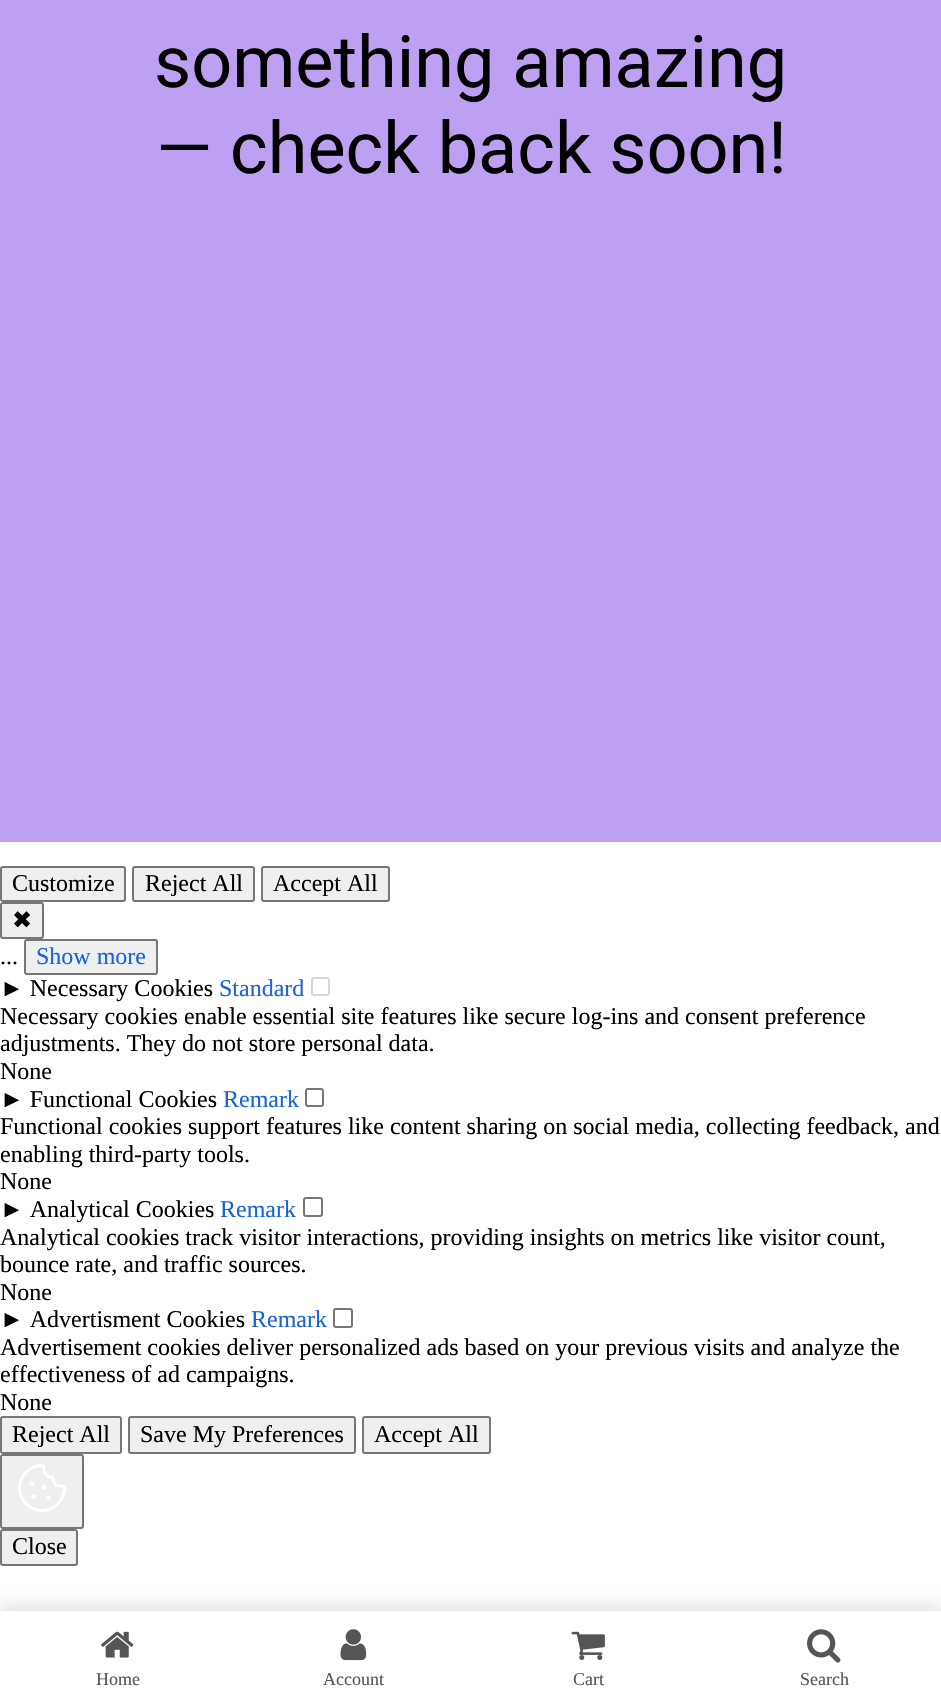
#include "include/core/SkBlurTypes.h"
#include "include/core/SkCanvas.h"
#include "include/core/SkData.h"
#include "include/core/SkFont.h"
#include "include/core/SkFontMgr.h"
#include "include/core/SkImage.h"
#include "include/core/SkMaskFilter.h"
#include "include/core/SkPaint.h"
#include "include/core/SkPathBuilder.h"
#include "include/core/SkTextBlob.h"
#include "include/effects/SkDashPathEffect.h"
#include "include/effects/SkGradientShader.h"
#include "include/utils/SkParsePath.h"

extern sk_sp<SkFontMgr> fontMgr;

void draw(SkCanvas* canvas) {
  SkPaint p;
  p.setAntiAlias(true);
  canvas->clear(SK_ColorWHITE);
  p.setColor(SkColorSetRGB(190, 160, 242));
  canvas->drawRect(SkRect::MakeLTRB(0, 0, 941, 842), p);
  p.setColor(SkColorSetRGB(239, 239, 239));
  canvas->drawRoundRect(SkRect::MakeLTRB(1, 867, 125, 901), 2, 2, p);
  p.setStyle(SkPaint::kStroke_Style);
  p.setStrokeWidth(2);
  p.setColor(SkColorSetRGB(118, 118, 118));
  canvas->drawRoundRect(SkRect::MakeLTRB(1, 867, 125, 901), 2, 2, p);
  p.setStyle(SkPaint::kFill_Style);
  p.setColor(SkColorSetRGB(239, 239, 239));
  canvas->drawRoundRect(SkRect::MakeLTRB(133, 867, 254, 901), 2, 2, p);
  p.setStyle(SkPaint::kStroke_Style);
  p.setColor(SkColorSetRGB(118, 118, 118));
  canvas->drawRoundRect(SkRect::MakeLTRB(133, 867, 254, 901), 2, 2, p);
  p.setStyle(SkPaint::kFill_Style);
  p.setColor(SkColorSetRGB(239, 239, 239));
  canvas->drawRoundRect(SkRect::MakeLTRB(262, 867, 389, 901), 2, 2, p);
  p.setStyle(SkPaint::kStroke_Style);
  p.setColor(SkColorSetRGB(118, 118, 118));
  canvas->drawRoundRect(SkRect::MakeLTRB(262, 867, 389, 901), 2, 2, p);
  p.setStyle(SkPaint::kFill_Style);
  p.setColor(SkColorSetRGB(239, 239, 239));
  canvas->drawRoundRect(SkRect::MakeLTRB(1, 903, 43, 938), 2, 2, p);
  p.setStyle(SkPaint::kStroke_Style);
  p.setColor(SkColorSetRGB(118, 118, 118));
  canvas->drawRoundRect(SkRect::MakeLTRB(1, 903, 43, 938), 2, 2, p);
  p.setStyle(SkPaint::kFill_Style);
  p.setColor(SkColorSetRGB(239, 239, 239));
  canvas->drawRoundRect(SkRect::MakeLTRB(25, 940, 157, 974), 2, 2, p);
  p.setStyle(SkPaint::kStroke_Style);
  p.setColor(SkColorSetRGB(118, 118, 118));
  canvas->drawRoundRect(SkRect::MakeLTRB(25, 940, 157, 974), 2, 2, p);
  p.setColor(SkColorSetRGB(214, 214, 214));
  canvas->drawRoundRect(SkRect::MakeLTRB(312, 978, 329, 995), 2, 2, p);
  p.setColor(SkColorSetRGB(118, 118, 118));
  canvas->drawRoundRect(SkRect::MakeLTRB(306, 1089, 323, 1106), 2, 2, p);
  canvas->drawRoundRect(SkRect::MakeLTRB(304, 1198, 322, 1216), 2, 2, p);
  canvas->drawRoundRect(SkRect::MakeLTRB(334, 1309, 352, 1327), 2, 2, p);
  p.setStyle(SkPaint::kFill_Style);
  p.setColor(SkColorSetRGB(239, 239, 239));
  canvas->drawRoundRect(SkRect::MakeLTRB(1, 1417, 121, 1453), 2, 2, p);
  p.setStyle(SkPaint::kStroke_Style);
  p.setColor(SkColorSetRGB(118, 118, 118));
  canvas->drawRoundRect(SkRect::MakeLTRB(1, 1417, 121, 1453), 2, 2, p);
  p.setStyle(SkPaint::kFill_Style);
  p.setColor(SkColorSetRGB(239, 239, 239));
  canvas->drawRoundRect(SkRect::MakeLTRB(129, 1417, 355, 1453), 2, 2, p);
  p.setStyle(SkPaint::kStroke_Style);
  p.setColor(SkColorSetRGB(118, 118, 118));
  canvas->drawRoundRect(SkRect::MakeLTRB(129, 1417, 355, 1453), 2, 2, p);
  p.setStyle(SkPaint::kFill_Style);
  p.setColor(SkColorSetRGB(239, 239, 239));
  canvas->drawRoundRect(SkRect::MakeLTRB(363, 1417, 490, 1453), 2, 2, p);
  p.setStyle(SkPaint::kStroke_Style);
  p.setColor(SkColorSetRGB(118, 118, 118));
  canvas->drawRoundRect(SkRect::MakeLTRB(363, 1417, 490, 1453), 2, 2, p);
  p.setStyle(SkPaint::kFill_Style);
  p.setColor(SkColorSetRGB(239, 239, 239));
  canvas->drawRoundRect(SkRect::MakeLTRB(1, 1455, 83, 1528), 2, 2, p);
  p.setStyle(SkPaint::kStroke_Style);
  p.setColor(SkColorSetRGB(118, 118, 118));
  canvas->drawRoundRect(SkRect::MakeLTRB(1, 1455, 83, 1528), 2, 2, p);
  canvas->drawImageRect(SkImages::DeferredFromEncodedData(SkData::MakeFromFileName("images/1.png")), SkRect::MakeLTRB(18, 1464, 66, 1512), SkSamplingOptions());
  p.setStyle(SkPaint::kFill_Style);
  p.setColor(SkColorSetRGB(239, 239, 239));
  canvas->drawRoundRect(SkRect::MakeLTRB(1, 1530, 77, 1565), 2, 2, p);
  p.setStyle(SkPaint::kStroke_Style);
  p.setColor(SkColorSetRGB(118, 118, 118));
  canvas->drawRoundRect(SkRect::MakeLTRB(1, 1530, 77, 1565), 2, 2, p);
  p.setStyle(SkPaint::kFill_Style);
  p.setColor(SkColorSetARGB(26, 0, 0, 0));
  p.setMaskFilter(SkMaskFilter::MakeBlur(kNormal_SkBlurStyle, 7.5f));
  canvas->drawRect(SkRect::MakeLTRB(0, 1604, 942, 1698), p);
  p.setMaskFilter(nullptr);
  p.setColor(SK_ColorWHITE);
  canvas->drawRect(SkRect::MakeLTRB(0, 1611, 941, 1705), p);
  canvas->drawImageRect(SkImages::DeferredFromEncodedData(SkData::MakeFromFileName("images/2.png")), SkRect::MakeLTRB(101, 1631, 134, 1658), SkSamplingOptions());
  canvas->drawImageRect(SkImages::DeferredFromEncodedData(SkData::MakeFromFileName("images/3.png")), SkRect::MakeLTRB(340, 1629, 367, 1661), SkSamplingOptions());
  canvas->drawImageRect(SkImages::DeferredFromEncodedData(SkData::MakeFromFileName("images/4.png")), SkRect::MakeLTRB(571, 1631, 605, 1660), SkSamplingOptions());
  canvas->drawImageRect(SkImages::DeferredFromEncodedData(SkData::MakeFromFileName("images/5.png")), SkRect::MakeLTRB(807, 1629, 841, 1663), SkSamplingOptions());
  SkFont font1(fontMgr->matchFamilyStyle("Roboto", SkFontStyle::Normal()), 72);
  font1.setSubpixel(true);
  p.setColor(SK_ColorBLACK);
  canvas->drawString("something amazing", 154, 87, font1, p);
  canvas->drawString("— check back soon!", 156, 173, font1, p);
  SkFont font2(fontMgr->matchFamilyStyle("Liberation Serif", SkFontStyle::Normal()), 24);
  font2.setSubpixel(true);
  canvas->drawString("Customize", 12, 891, font2, p);
  canvas->drawString("Reject All", 145, 891, font2, p);
  canvas->drawString("Accept All", 273, 891, font2, p);
  SkFont font3(fontMgr->matchFamilyStyle("DejaVu Sans", SkFontStyle::Normal()), 24);
  font3.setSubpixel(true);
  canvas->drawString("✖", 12, 928, font3, p);
  canvas->drawString("...", 0, 964, font2, p);
  p.setColor(SkColorSetRGB(24, 99, 220));
  canvas->drawString("Show more", 36, 964, font2, p);
  p.setColor(SK_ColorBLACK);
  canvas->drawString("► Necessary Cookies", 0, 996, font2, p);
  p.setColor(SkColorSetRGB(24, 99, 220));
  canvas->drawString("Standard", 219, 996, font2, p);
  p.setColor(SK_ColorBLACK);
  canvas->drawString("Necessary cookies enable essential site features like secure log-ins and consent preference", 0, 1024, font2, p);
  canvas->drawString("adjustments. They do not store personal data.", 0, 1051, font2, p);
  canvas->drawString("None", 0, 1079, font2, p);
  canvas->drawString("► Functional Cookies", 0, 1107, font2, p);
  p.setColor(SkColorSetRGB(24, 99, 220));
  canvas->drawString("Remark", 223, 1107, font2, p);
  p.setColor(SK_ColorBLACK);
  canvas->drawString("Functional cookies support features like content sharing on social media, collecting feedback, and", 0, 1134, font2, p);
  canvas->drawString("enabling third-party tools.", 0, 1162, font2, p);
  canvas->drawString("None", 0, 1189, font2, p);
  canvas->drawString("► Analytical Cookies", 0, 1217, font2, p);
  p.setColor(SkColorSetRGB(24, 99, 220));
  canvas->drawString("Remark", 220, 1217, font2, p);
  p.setColor(SK_ColorBLACK);
  canvas->drawString("Analytical cookies track visitor interactions, providing insights on metrics like visitor count,", 0, 1245, font2, p);
  canvas->drawString("bounce rate, and traffic sources.", 0, 1272, font2, p);
  canvas->drawString("None", 0, 1300, font2, p);
  canvas->drawString("► Advertisment Cookies", 0, 1327, font2, p);
  p.setColor(SkColorSetRGB(24, 99, 220));
  canvas->drawString("Remark", 251, 1327, font2, p);
  p.setColor(SK_ColorBLACK);
  canvas->drawString("Advertisement cookies deliver personalized ads based on your previous visits and analyze the", 0, 1355, font2, p);
  canvas->drawString("effectiveness of ad campaigns.", 0, 1382, font2, p);
  canvas->drawString("None", 0, 1410, font2, p);
  canvas->drawString("Reject All", 12, 1442, font2, p);
  canvas->drawString("Save My Preferences", 140, 1442, font2, p);
  canvas->drawString("Accept All", 374, 1442, font2, p);
  canvas->drawString("Close", 12, 1554, font2, p);
  SkFont font4(fontMgr->matchFamilyStyle("Liberation Serif", SkFontStyle::Normal()), 18);
  font4.setSubpixel(true);
  p.setColor(SkColorSetRGB(85, 85, 85));
  canvas->drawString("Home", 96, 1685, font4, p);
  canvas->drawString("Account", 323, 1685, font4, p);
  canvas->drawString("Cart", 573, 1685, font4, p);
  canvas->drawString("Search", 800, 1685, font4, p);
}
